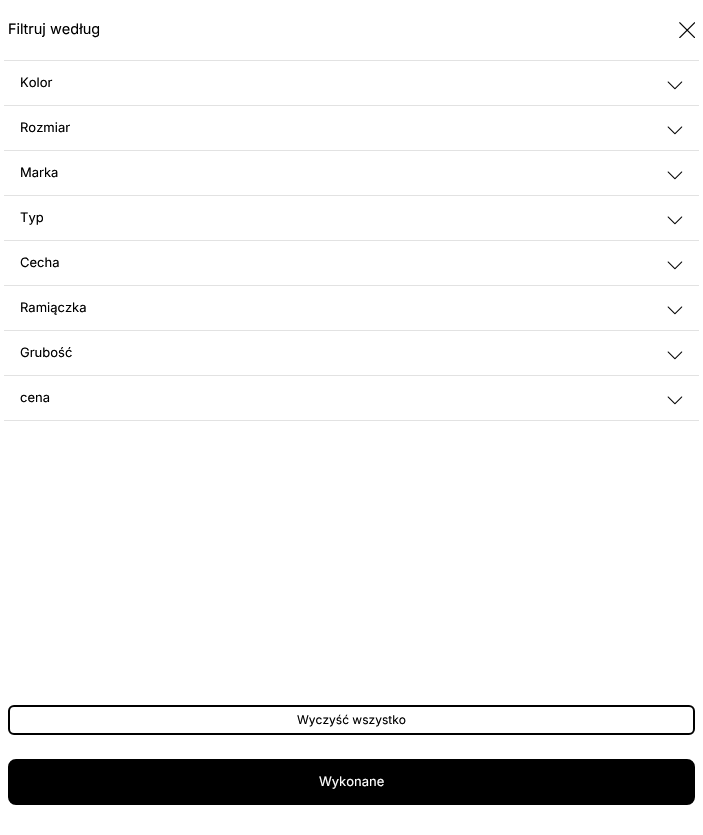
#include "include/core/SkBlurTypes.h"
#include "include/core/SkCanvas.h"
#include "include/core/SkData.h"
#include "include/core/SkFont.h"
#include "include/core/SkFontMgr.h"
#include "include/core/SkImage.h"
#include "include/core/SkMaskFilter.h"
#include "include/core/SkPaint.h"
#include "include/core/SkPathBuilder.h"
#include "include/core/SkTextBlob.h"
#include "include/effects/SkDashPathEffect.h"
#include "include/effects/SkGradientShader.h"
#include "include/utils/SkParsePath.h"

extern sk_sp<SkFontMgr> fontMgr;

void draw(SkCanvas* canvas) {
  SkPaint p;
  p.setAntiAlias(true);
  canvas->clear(SK_ColorWHITE);
  canvas->drawImageRect(SkImages::DeferredFromEncodedData(SkData::MakeFromFileName("images/1.png")), SkRect::MakeLTRB(679, 22, 695, 38), SkSamplingOptions());
  p.setColor(SkColorSetRGB(226, 226, 226));
  canvas->drawRect(SkRect::MakeLTRB(4, 60, 699, 61), p);
  canvas->drawImageRect(SkImages::DeferredFromEncodedData(SkData::MakeFromFileName("images/2.png")), SkRect::MakeLTRB(667, 81, 683, 90), SkSamplingOptions());
  canvas->drawRect(SkRect::MakeLTRB(4, 105, 699, 106), p);
  canvas->drawImageRect(SkImages::DeferredFromEncodedData(SkData::MakeFromFileName("images/2.png")), SkRect::MakeLTRB(667, 126, 683, 135), SkSamplingOptions());
  canvas->drawRect(SkRect::MakeLTRB(4, 150, 699, 151), p);
  canvas->drawImageRect(SkImages::DeferredFromEncodedData(SkData::MakeFromFileName("images/2.png")), SkRect::MakeLTRB(667, 171, 683, 180), SkSamplingOptions());
  canvas->drawRect(SkRect::MakeLTRB(4, 195, 699, 196), p);
  canvas->drawImageRect(SkImages::DeferredFromEncodedData(SkData::MakeFromFileName("images/2.png")), SkRect::MakeLTRB(667, 216, 683, 225), SkSamplingOptions());
  canvas->drawRect(SkRect::MakeLTRB(4, 240, 699, 241), p);
  canvas->drawImageRect(SkImages::DeferredFromEncodedData(SkData::MakeFromFileName("images/2.png")), SkRect::MakeLTRB(667, 261, 683, 270), SkSamplingOptions());
  canvas->drawRect(SkRect::MakeLTRB(4, 285, 699, 286), p);
  canvas->drawImageRect(SkImages::DeferredFromEncodedData(SkData::MakeFromFileName("images/2.png")), SkRect::MakeLTRB(667, 306, 683, 315), SkSamplingOptions());
  canvas->drawRect(SkRect::MakeLTRB(4, 330, 699, 331), p);
  canvas->drawImageRect(SkImages::DeferredFromEncodedData(SkData::MakeFromFileName("images/2.png")), SkRect::MakeLTRB(667, 351, 683, 360), SkSamplingOptions());
  canvas->drawRect(SkRect::MakeLTRB(4, 375, 699, 376), p);
  canvas->drawRect(SkRect::MakeLTRB(4, 420, 699, 421), p);
  canvas->drawImageRect(SkImages::DeferredFromEncodedData(SkData::MakeFromFileName("images/2.png")), SkRect::MakeLTRB(667, 396, 683, 405), SkSamplingOptions());
  p.setStyle(SkPaint::kStroke_Style);
  p.setStrokeWidth(2);
  p.setColor(SK_ColorBLACK);
  canvas->drawRoundRect(SkRect::MakeLTRB(9, 706, 694, 734), 5, 5, p);
  p.setStyle(SkPaint::kFill_Style);
  canvas->drawRoundRect(SkRect::MakeLTRB(9, 760, 694, 804), 7, 7, p);
  p.setStyle(SkPaint::kStroke_Style);
  canvas->drawRoundRect(SkRect::MakeLTRB(9, 760, 694, 804), 7, 7, p);
  SkFont font1(fontMgr->matchFamilyStyle("Inter", SkFontStyle::Normal()), 14.5f);
  font1.setSubpixel(true);
  p.setStyle(SkPaint::kFill_Style);
  canvas->drawString("Filtruj według", 8, 34, font1, p);
  SkFont font2(fontMgr->matchFamilyStyle("Inter", SkFontStyle::Normal()), 13);
  font2.setSubpixel(true);
  canvas->drawString("Kolor", 20, 87, font2, p);
  canvas->drawString("Rozmiar", 20, 132, font2, p);
  canvas->drawString("Marka", 20, 177, font2, p);
  canvas->drawString("Typ", 20, 222, font2, p);
  canvas->drawString("Cecha", 20, 267, font2, p);
  canvas->drawString("Ramiączka", 20, 312, font2, p);
  canvas->drawString("Grubość", 20, 357, font2, p);
  canvas->drawString("cena", 20, 402, font2, p);
  SkFont font3(fontMgr->matchFamilyStyle("Inter", SkFontStyle::Normal()), 12);
  font3.setSubpixel(true);
  canvas->drawString("Wyczyść wszystko", 297, 724, font3, p);
  p.setColor(SK_ColorWHITE);
  canvas->drawString("Wykonane", 319, 786, font2, p);
}
